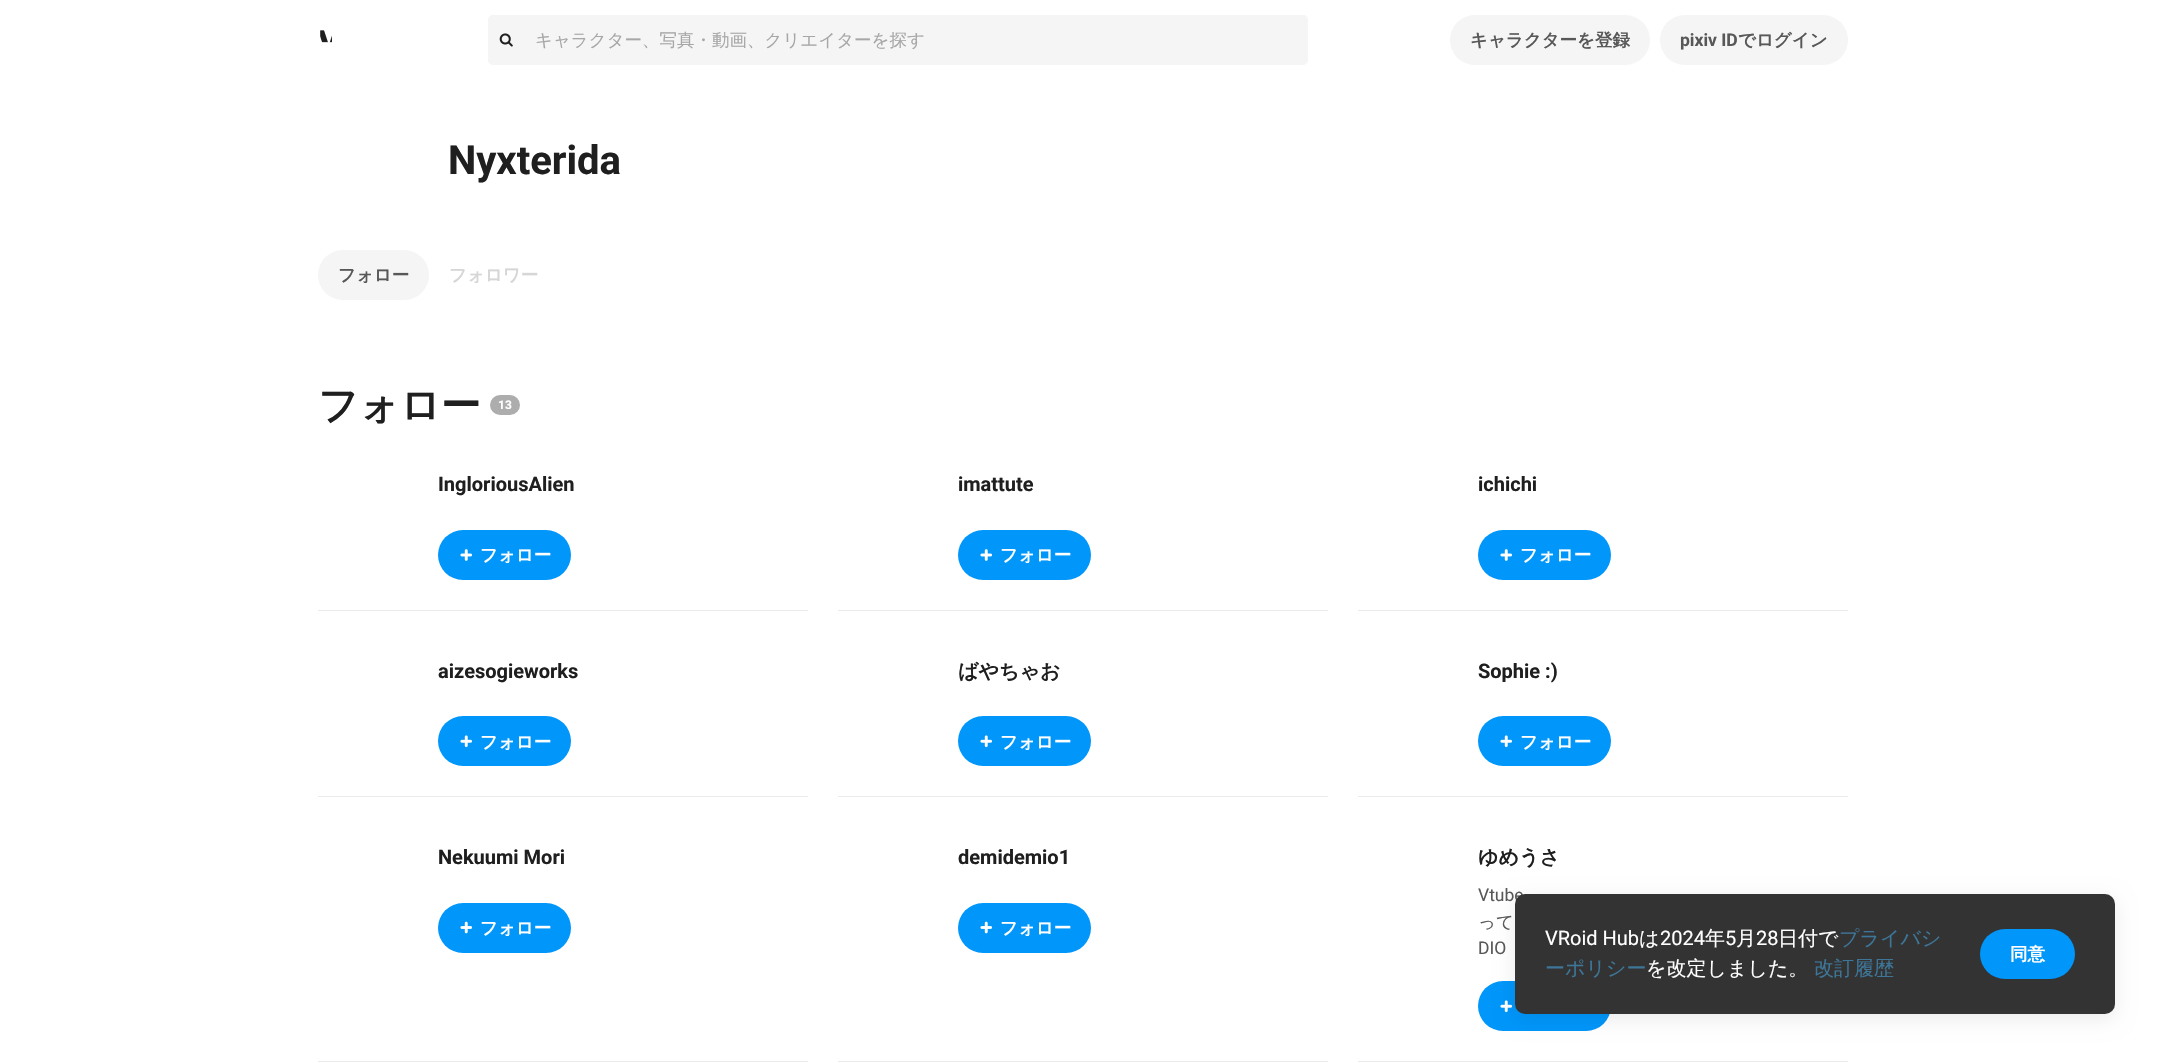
#include "include/core/SkBlurTypes.h"
#include "include/core/SkCanvas.h"
#include "include/core/SkData.h"
#include "include/core/SkFont.h"
#include "include/core/SkFontMgr.h"
#include "include/core/SkImage.h"
#include "include/core/SkMaskFilter.h"
#include "include/core/SkPaint.h"
#include "include/core/SkPathBuilder.h"
#include "include/core/SkTextBlob.h"
#include "include/effects/SkDashPathEffect.h"
#include "include/effects/SkGradientShader.h"
#include "include/utils/SkParsePath.h"

extern sk_sp<SkFontMgr> fontMgr;

void draw(SkCanvas* canvas) {
  SkPaint p;
  p.setAntiAlias(true);
  canvas->clear(SK_ColorWHITE);
  canvas->drawImageRect(SkImages::DeferredFromEncodedData(SkData::MakeFromFileName("images/1.png")), SkRect::MakeLTRB(320, 30, 332, 43), SkSamplingOptions());
  p.setColor(SkColorSetRGB(245, 245, 245));
  canvas->drawRoundRect(SkRect::MakeLTRB(488, 15, 1308, 65), 5, 5, p);
  canvas->drawImageRect(SkImages::DeferredFromEncodedData(SkData::MakeFromFileName("images/2.png")), SkRect::MakeLTRB(499, 33, 513, 47), SkSamplingOptions());
  canvas->drawRoundRect(SkRect::MakeLTRB(1450, 15, 1650, 65), 25, 25, p);
  canvas->drawRoundRect(SkRect::MakeLTRB(1660, 15, 1848, 65), 25, 25, p);
  canvas->drawRoundRect(SkRect::MakeLTRB(318, 250, 429, 300), 25, 25, p);
  p.setColor(SkColorSetRGB(173, 173, 173));
  canvas->drawRoundRect(SkRect::MakeLTRB(490, 395, 520, 415), 10, 10, p);
  p.setColor(SkColorSetRGB(235, 235, 235));
  canvas->drawRect(SkRect::MakeLTRB(318, 610, 808, 611), p);
  p.setColor(SkColorSetRGB(0, 150, 250));
  canvas->drawRoundRect(SkRect::MakeLTRB(438, 530, 571, 580), 25, 25, p);
  canvas->drawImageRect(SkImages::DeferredFromEncodedData(SkData::MakeFromFileName("images/3.png")), SkRect::MakeLTRB(460, 549, 472, 561), SkSamplingOptions());
  p.setColor(SkColorSetRGB(235, 235, 235));
  canvas->drawRect(SkRect::MakeLTRB(838, 610, 1328, 611), p);
  p.setColor(SkColorSetRGB(0, 150, 250));
  canvas->drawRoundRect(SkRect::MakeLTRB(958, 530, 1091, 580), 25, 25, p);
  canvas->drawImageRect(SkImages::DeferredFromEncodedData(SkData::MakeFromFileName("images/3.png")), SkRect::MakeLTRB(980, 549, 992, 561), SkSamplingOptions());
  p.setColor(SkColorSetRGB(235, 235, 235));
  canvas->drawRect(SkRect::MakeLTRB(1358, 610, 1848, 611), p);
  p.setColor(SkColorSetRGB(0, 150, 250));
  canvas->drawRoundRect(SkRect::MakeLTRB(1478, 530, 1611, 580), 25, 25, p);
  canvas->drawImageRect(SkImages::DeferredFromEncodedData(SkData::MakeFromFileName("images/3.png")), SkRect::MakeLTRB(1500, 549, 1512, 561), SkSamplingOptions());
  p.setColor(SkColorSetRGB(235, 235, 235));
  canvas->drawRect(SkRect::MakeLTRB(318, 796, 808, 797), p);
  p.setColor(SkColorSetRGB(0, 150, 250));
  canvas->drawRoundRect(SkRect::MakeLTRB(438, 716, 571, 766), 25, 25, p);
  canvas->drawImageRect(SkImages::DeferredFromEncodedData(SkData::MakeFromFileName("images/4.png")), SkRect::MakeLTRB(460, 735, 473, 748), SkSamplingOptions());
  p.setColor(SkColorSetRGB(235, 235, 235));
  canvas->drawRect(SkRect::MakeLTRB(838, 796, 1328, 797), p);
  p.setColor(SkColorSetRGB(0, 150, 250));
  canvas->drawRoundRect(SkRect::MakeLTRB(958, 716, 1091, 766), 25, 25, p);
  canvas->drawImageRect(SkImages::DeferredFromEncodedData(SkData::MakeFromFileName("images/4.png")), SkRect::MakeLTRB(980, 735, 993, 748), SkSamplingOptions());
  p.setColor(SkColorSetRGB(235, 235, 235));
  canvas->drawRect(SkRect::MakeLTRB(1358, 796, 1848, 797), p);
  p.setColor(SkColorSetRGB(0, 150, 250));
  canvas->drawRoundRect(SkRect::MakeLTRB(1478, 716, 1611, 766), 25, 25, p);
  canvas->drawImageRect(SkImages::DeferredFromEncodedData(SkData::MakeFromFileName("images/4.png")), SkRect::MakeLTRB(1500, 735, 1513, 748), SkSamplingOptions());
  p.setColor(SkColorSetRGB(235, 235, 235));
  canvas->drawRect(SkRect::MakeLTRB(318, 1061, 808, 1062), p);
  p.setColor(SkColorSetRGB(0, 150, 250));
  canvas->drawRoundRect(SkRect::MakeLTRB(438, 903, 571, 953), 25, 25, p);
  canvas->drawImageRect(SkImages::DeferredFromEncodedData(SkData::MakeFromFileName("images/5.png")), SkRect::MakeLTRB(460, 921, 473, 934), SkSamplingOptions());
  p.setColor(SkColorSetRGB(235, 235, 235));
  canvas->drawRect(SkRect::MakeLTRB(838, 1061, 1328, 1062), p);
  p.setColor(SkColorSetRGB(0, 150, 250));
  canvas->drawRoundRect(SkRect::MakeLTRB(958, 903, 1091, 953), 25, 25, p);
  canvas->drawImageRect(SkImages::DeferredFromEncodedData(SkData::MakeFromFileName("images/5.png")), SkRect::MakeLTRB(980, 921, 993, 934), SkSamplingOptions());
  p.setColor(SkColorSetRGB(235, 235, 235));
  canvas->drawRect(SkRect::MakeLTRB(1358, 1061, 1848, 1062), p);
  p.setColor(SkColorSetRGB(0, 150, 250));
  canvas->drawRoundRect(SkRect::MakeLTRB(1478, 981, 1611, 1031), 25, 25, p);
  canvas->drawImageRect(SkImages::DeferredFromEncodedData(SkData::MakeFromFileName("images/4.png")), SkRect::MakeLTRB(1500, 1000, 1513, 1013), SkSamplingOptions());
  p.setColor(SkColorSetARGB(20, 0, 0, 0));
  p.setMaskFilter(SkMaskFilter::MakeBlur(kNormal_SkBlurStyle, 10));
  canvas->drawRoundRect(SkRect::MakeLTRB(1515, 899, 2115, 1019), 10, 10, p);
  p.setMaskFilter(nullptr);
  SkFont font1(fontMgr->matchFamilyStyle("WenQuanYi Zen Hei", SkFontStyle(500, SkFontStyle::kNormal_Width, SkFontStyle::kUpright_Slant)), 17.5f);
  font1.setSubpixel(true);
  p.setColor(SkColorSetRGB(167, 167, 167));
  canvas->drawString("キャラクター、写真・動画、クリエイターを探す", 535, 46, font1, p);
  SkFont font2(fontMgr->matchFamilyStyle("WenQuanYi Zen Hei", SkFontStyle::Bold()), 17.5f);
  font2.setSubpixel(true);
  p.setColor(SkColorSetRGB(88, 88, 88));
  canvas->drawString("キャラクターを登録", 1470, 46, font2, p);
  SkFont font3(fontMgr->matchFamilyStyle("Roboto", SkFontStyle::Bold()), 17.5f);
  font3.setSubpixel(true);
  canvas->drawString("pixiv ID", 1680, 46, font3, p);
  canvas->drawString("でログイン", 1738, 46, font2, p);
  SkFont font4(fontMgr->matchFamilyStyle("Roboto", SkFontStyle::Bold()), 40);
  font4.setSubpixel(true);
  p.setColor(SkColorSetRGB(31, 31, 31));
  canvas->drawString("Nyxterida", 448, 174, font4, p);
  p.setColor(SkColorSetRGB(88, 88, 88));
  canvas->drawString("フォロー", 338, 281, font2, p);
  p.setColor(SkColorSetRGB(214, 214, 214));
  canvas->drawString("フォロワー", 449, 281, font2, p);
  SkFont font5(fontMgr->matchFamilyStyle("WenQuanYi Zen Hei", SkFontStyle::Bold()), 40);
  font5.setSubpixel(true);
  p.setColor(SkColorSetRGB(31, 31, 31));
  canvas->drawString("フォロー", 318, 419, font5, p);
  SkFont font6(fontMgr->matchFamilyStyle("Roboto", SkFontStyle::Bold()), 12);
  font6.setSubpixel(true);
  p.setColor(SK_ColorWHITE);
  canvas->drawString("13", 498, 409, font6, p);
  SkFont font7(fontMgr->matchFamilyStyle("Roboto", SkFontStyle::Bold()), 20);
  font7.setSubpixel(true);
  p.setColor(SkColorSetRGB(31, 31, 31));
  canvas->drawString("IngloriousAlien", 438, 491, font7, p);
  p.setColor(SK_ColorWHITE);
  canvas->drawString("フォロー", 480, 561, font2, p);
  p.setColor(SkColorSetRGB(31, 31, 31));
  canvas->drawString("imattute", 958, 491, font7, p);
  p.setColor(SK_ColorWHITE);
  canvas->drawString("フォロー", 1000, 561, font2, p);
  p.setColor(SkColorSetRGB(31, 31, 31));
  canvas->drawString("ichichi", 1478, 491, font7, p);
  p.setColor(SK_ColorWHITE);
  canvas->drawString("フォロー", 1520, 561, font2, p);
  p.setColor(SkColorSetRGB(31, 31, 31));
  canvas->drawString("aizesogieworks", 438, 678, font7, p);
  p.setColor(SK_ColorWHITE);
  canvas->drawString("フォロー", 480, 748, font2, p);
  SkFont font8(fontMgr->matchFamilyStyle("WenQuanYi Zen Hei", SkFontStyle::Bold()), 20);
  font8.setSubpixel(true);
  p.setColor(SkColorSetRGB(31, 31, 31));
  canvas->drawString("ばやちゃお", 958, 678, font8, p);
  p.setColor(SK_ColorWHITE);
  canvas->drawString("フォロー", 1000, 748, font2, p);
  p.setColor(SkColorSetRGB(31, 31, 31));
  canvas->drawString("Sophie :)", 1478, 678, font7, p);
  p.setColor(SK_ColorWHITE);
  canvas->drawString("フォロー", 1520, 748, font2, p);
  p.setColor(SkColorSetRGB(31, 31, 31));
  canvas->drawString("Nekuumi Mori", 438, 864, font7, p);
  p.setColor(SK_ColorWHITE);
  canvas->drawString("フォロー", 480, 934, font2, p);
  p.setColor(SkColorSetRGB(31, 31, 31));
  canvas->drawString("demidemio1", 958, 864, font7, p);
  p.setColor(SK_ColorWHITE);
  canvas->drawString("フォロー", 1000, 934, font2, p);
  p.setColor(SkColorSetRGB(31, 31, 31));
  canvas->drawString("ゆめうさ", 1478, 864, font8, p);
  SkFont font9(fontMgr->matchFamilyStyle("Roboto", SkFontStyle::Normal()), 17.5f);
  font9.setSubpixel(true);
  p.setColor(SkColorSetRGB(88, 88, 88));
  canvas->drawString("Vtube", 1478, 901, font9, p);
  canvas->drawString("って", 1478, 928, font1, p);
  canvas->drawString("DIO", 1478, 954, font9, p);
  p.setColor(SkColorSetRGB(51, 51, 51));
  canvas->drawRoundRect(SkRect::MakeLTRB(1515, 894, 2115, 1014), 10, 10, p);
  SkFont font10(fontMgr->matchFamilyStyle("Roboto", SkFontStyle::Normal()), 20);
  font10.setSubpixel(true);
  p.setColor(SK_ColorWHITE);
  canvas->drawString("VRoid Hub", 1545, 945, font10, p);
  SkFont font11(fontMgr->matchFamilyStyle("WenQuanYi Zen Hei", SkFontStyle(500, SkFontStyle::kNormal_Width, SkFontStyle::kUpright_Slant)), 20);
  font11.setSubpixel(true);
  canvas->drawString("は", 1639, 945, font11, p);
  canvas->drawString("2024", 1660, 945, font10, p);
  canvas->drawString("年", 1705, 945, font11, p);
  canvas->drawString("5", 1725, 945, font10, p);
  canvas->drawString("月", 1736, 945, font11, p);
  canvas->drawString("28", 1756, 945, font10, p);
  canvas->drawString("日付で", 1778, 945, font11, p);
  p.setColor(SkColorSetRGB(61, 118, 153));
  canvas->drawString("プライバシ", 1839, 945, font11, p);
  canvas->drawString("ーポリシー", 1545, 975, font11, p);
  p.setColor(SK_ColorWHITE);
  canvas->drawString("を改定しました。", 1646, 975, font11, p);
  p.setColor(SkColorSetRGB(61, 118, 153));
  canvas->drawString("改訂履歴", 1814, 975, font11, p);
  p.setColor(SkColorSetRGB(0, 150, 250));
  canvas->drawRoundRect(SkRect::MakeLTRB(1980, 929, 2075, 979), 25, 25, p);
  p.setColor(SK_ColorWHITE);
  canvas->drawString("同意", 2010, 960, font2, p);
}
